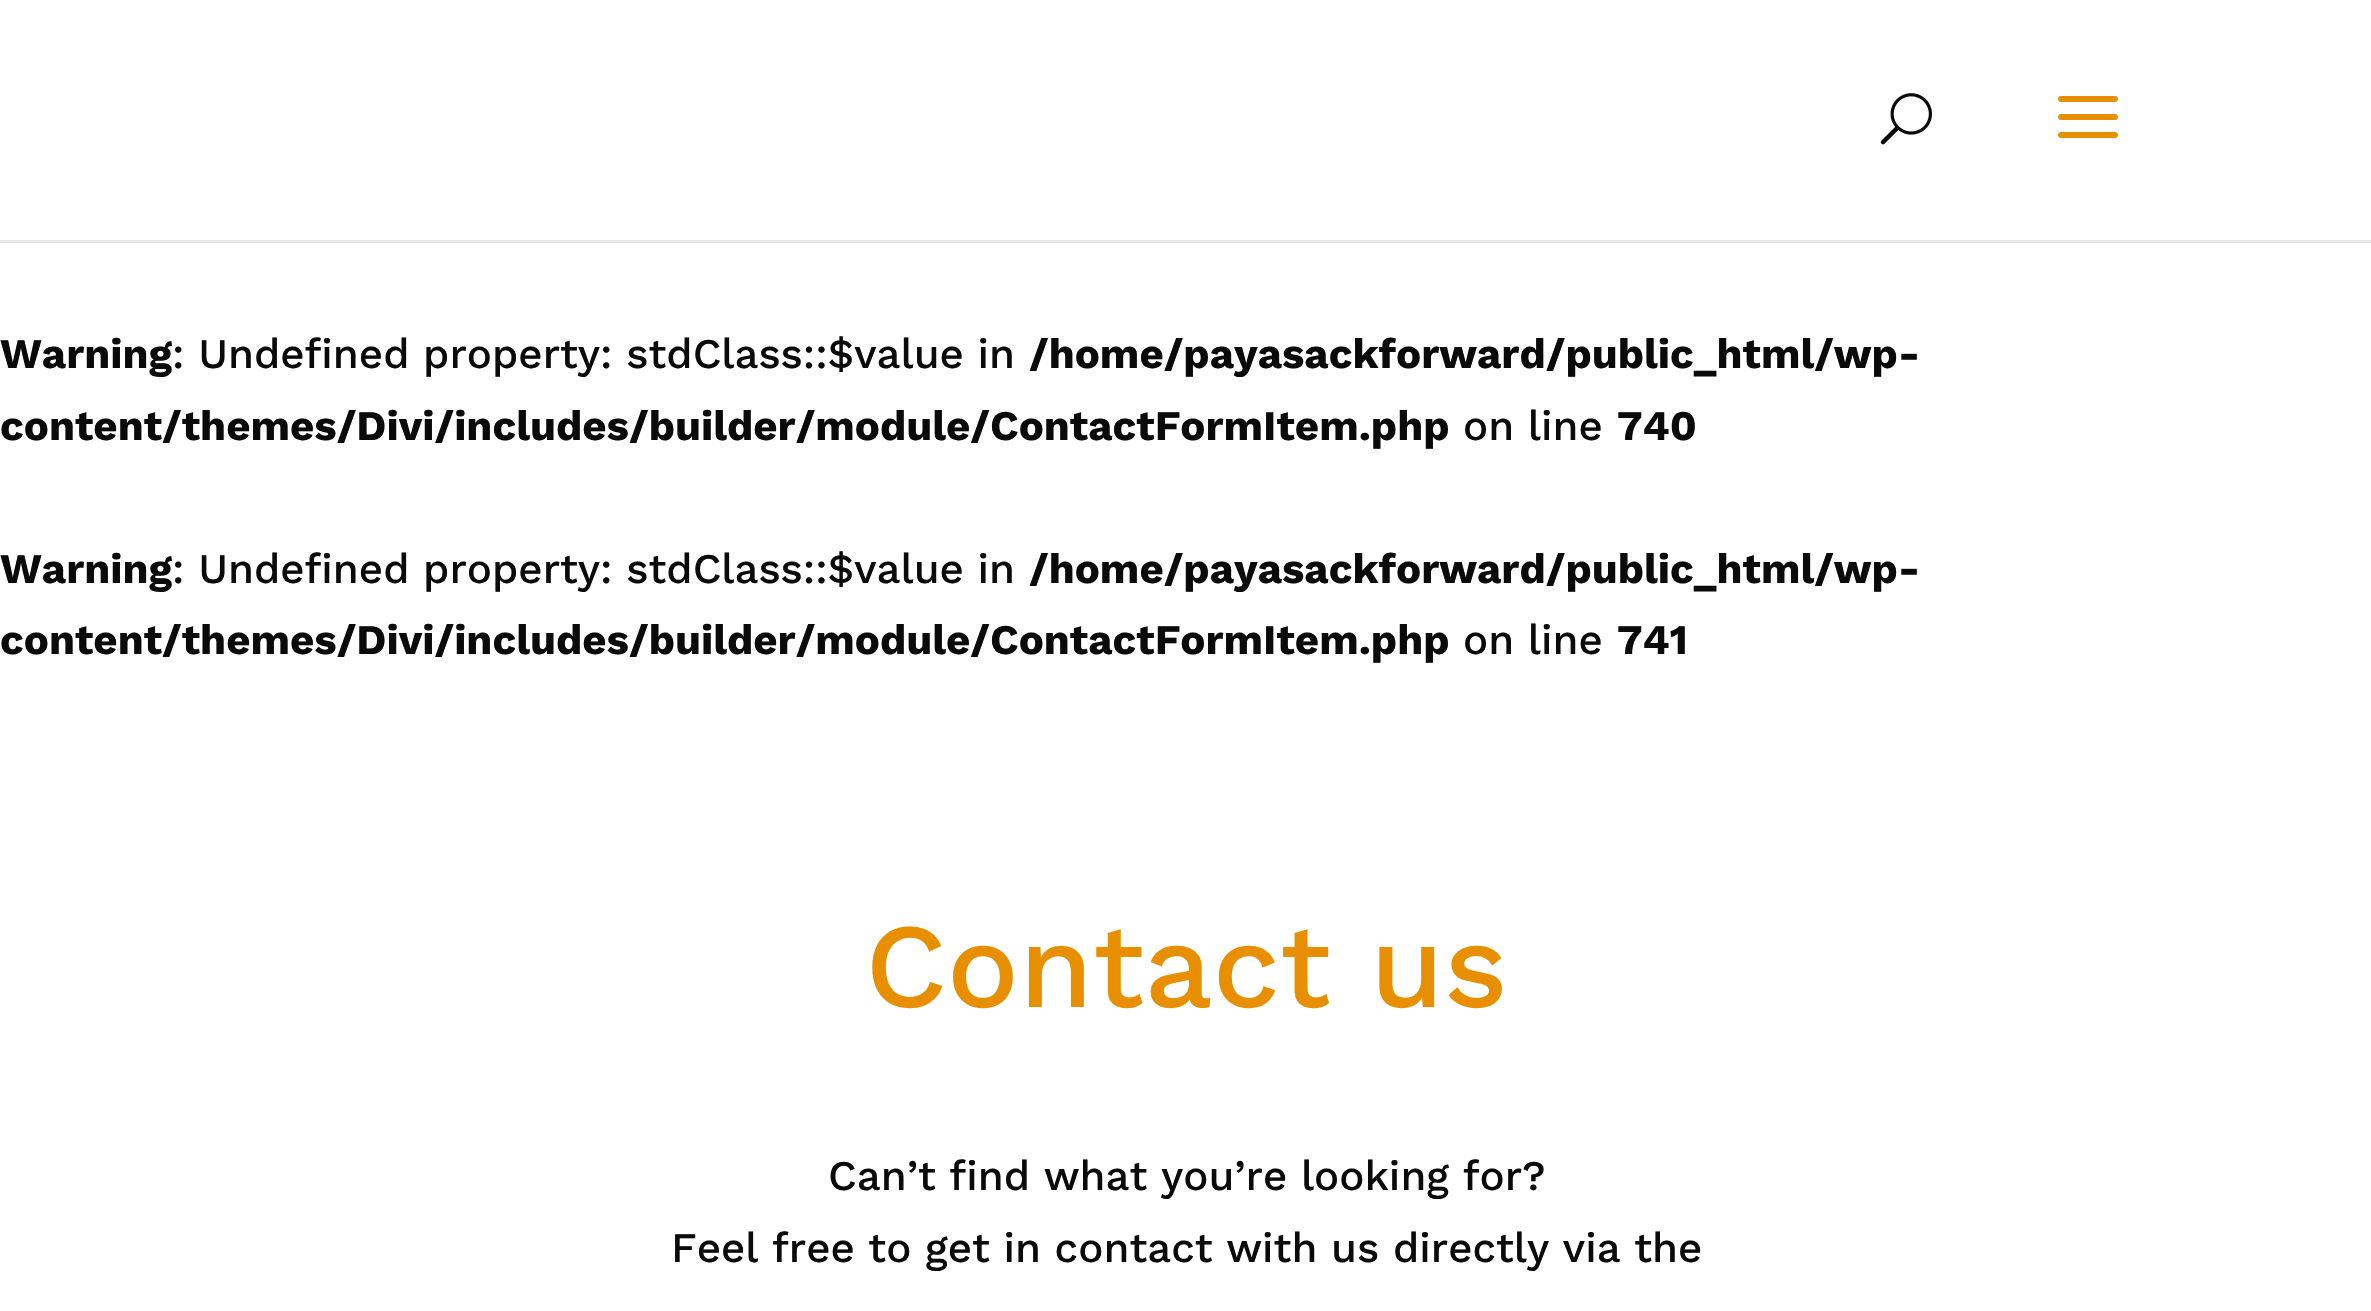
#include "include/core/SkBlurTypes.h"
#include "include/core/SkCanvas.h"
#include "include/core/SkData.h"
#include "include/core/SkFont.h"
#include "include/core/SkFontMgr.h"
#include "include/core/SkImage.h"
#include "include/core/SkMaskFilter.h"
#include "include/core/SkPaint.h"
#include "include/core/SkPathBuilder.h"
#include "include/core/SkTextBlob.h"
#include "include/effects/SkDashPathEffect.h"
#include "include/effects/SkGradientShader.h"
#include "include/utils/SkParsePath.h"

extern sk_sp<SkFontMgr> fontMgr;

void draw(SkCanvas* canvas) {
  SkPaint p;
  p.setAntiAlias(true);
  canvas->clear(SK_ColorWHITE);
  p.setColor(SkColorSetRGB(230, 230, 230));
  canvas->drawRect(SkRect::MakeLTRB(0, 240, 2371, 243), p);
  canvas->drawImageRect(SkImages::DeferredFromEncodedData(SkData::MakeFromFileName("images/1.png")), SkRect::MakeLTRB(1880, 93, 1932, 145), SkSamplingOptions());
  canvas->drawImageRect(SkImages::DeferredFromEncodedData(SkData::MakeFromFileName("images/2.png")), SkRect::MakeLTRB(2058, 96, 2118, 138), SkSamplingOptions());
  SkFont font1(fontMgr->matchFamilyStyle("Work Sans", SkFontStyle::Bold()), 42);
  font1.setSubpixel(true);
  p.setColor(SkColorSetRGB(10, 10, 10));
  canvas->drawString("Warning", 0, 368, font1, p);
  SkFont font2(fontMgr->matchFamilyStyle("Work Sans", SkFontStyle(500, SkFontStyle::kNormal_Width, SkFontStyle::kUpright_Slant)), 42);
  font2.setSubpixel(true);
  canvas->drawString(": Undefined property: stdClass::$value in", 172, 368, font2, p);
  canvas->drawString("/home/payasackforward/public_html/wp-", 1029, 368, font1, p);
  canvas->drawString("content/themes/Divi/includes/builder/module/ContactFormItem.php", 0, 440, font1, p);
  canvas->drawString("on line", 1463, 440, font2, p);
  canvas->drawString("740", 1617, 440, font1, p);
  canvas->drawString("Warning", 0, 583, font1, p);
  canvas->drawString(": Undefined property: stdClass::$value in", 172, 583, font2, p);
  canvas->drawString("/home/payasackforward/public_html/wp-", 1029, 583, font1, p);
  canvas->drawString("content/themes/Divi/includes/builder/module/ContactFormItem.php", 0, 654, font1, p);
  canvas->drawString("on line", 1463, 654, font2, p);
  canvas->drawString("741", 1617, 654, font1, p);
  SkFont font3(fontMgr->matchFamilyStyle("Work Sans", SkFontStyle(500, SkFontStyle::kNormal_Width, SkFontStyle::kUpright_Slant)), 120);
  font3.setSubpixel(true);
  p.setColor(SkColorSetRGB(232, 143, 0));
  canvas->drawString("Contact us", 865, 1007, font3, p);
  p.setColor(SkColorSetRGB(10, 10, 10));
  canvas->drawString("Can’t find what you’re looking for?", 828, 1190, font2, p);
  canvas->drawString("Feel free to get in contact with us directly via the", 671, 1262, font2, p);
}
